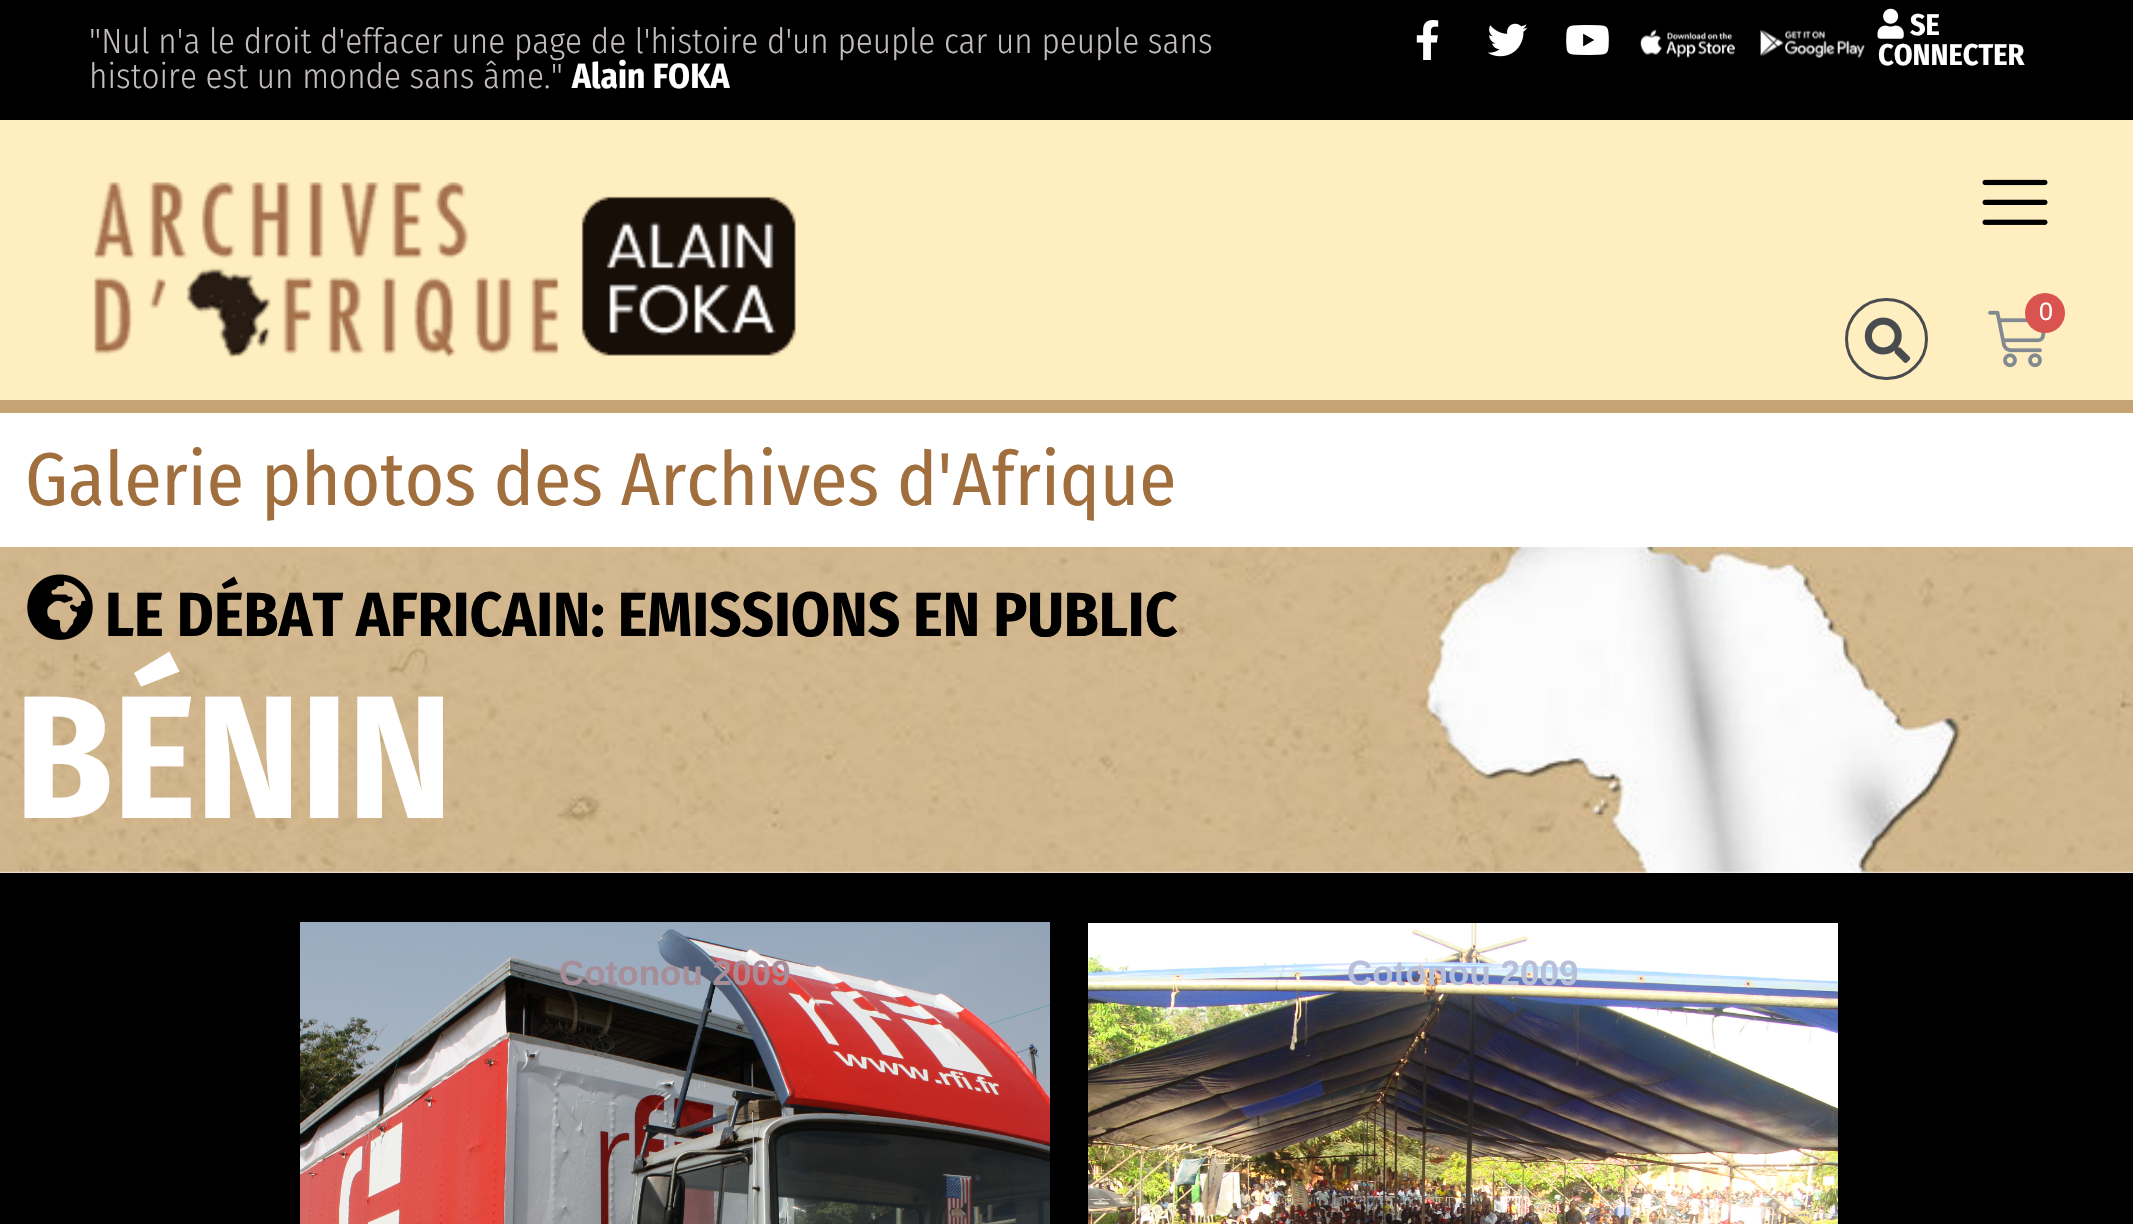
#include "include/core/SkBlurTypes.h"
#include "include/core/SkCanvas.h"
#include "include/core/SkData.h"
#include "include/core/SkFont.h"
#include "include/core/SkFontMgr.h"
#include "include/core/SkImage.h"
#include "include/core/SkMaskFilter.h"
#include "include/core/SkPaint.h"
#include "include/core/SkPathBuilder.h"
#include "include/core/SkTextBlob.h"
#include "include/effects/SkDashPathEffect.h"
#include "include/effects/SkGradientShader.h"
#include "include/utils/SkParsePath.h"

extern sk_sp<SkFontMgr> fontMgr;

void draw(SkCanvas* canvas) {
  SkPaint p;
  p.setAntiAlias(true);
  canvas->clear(SK_ColorWHITE);
  p.setColor(SK_ColorBLACK);
  canvas->drawRect(SkRect::MakeLTRB(0, 0, 2133, 120), p);
  canvas->drawImageRect(SkImages::DeferredFromEncodedData(SkData::MakeFromFileName("images/1.png")), SkRect::MakeLTRB(1416, 20, 1439, 60), SkSamplingOptions());
  canvas->drawImageRect(SkImages::DeferredFromEncodedData(SkData::MakeFromFileName("images/2.png")), SkRect::MakeLTRB(1487, 23, 1528, 57), SkSamplingOptions());
  canvas->drawImageRect(SkImages::DeferredFromEncodedData(SkData::MakeFromFileName("images/3.png")), SkRect::MakeLTRB(1566, 25, 1609, 55), SkSamplingOptions());
  canvas->drawImageRect(SkImages::DeferredFromEncodedData(SkData::MakeFromFileName("images/4.png")), SkRect::MakeLTRB(1640, 29, 1735, 58), SkSamplingOptions());
  canvas->drawImageRect(SkImages::DeferredFromEncodedData(SkData::MakeFromFileName("images/5.png")), SkRect::MakeLTRB(1760, 29, 1865, 58), SkSamplingOptions());
  canvas->drawImageRect(SkImages::DeferredFromEncodedData(SkData::MakeFromFileName("images/6.png")), SkRect::MakeLTRB(1877, 8, 1904, 39), SkSamplingOptions());
  p.setColor(SkColorSetRGB(255, 238, 192));
  canvas->drawRect(SkRect::MakeLTRB(0, 120, 2133, 400), p);
  p.setColor(SkColorSetRGB(197, 163, 115));
  canvas->drawRect(SkRect::MakeLTRB(0, 400, 2133, 413), p);
  canvas->drawImageRect(SkImages::DeferredFromEncodedData(SkData::MakeFromFileName("images/7.png")), SkRect::MakeLTRB(94, 182, 798, 358), SkSamplingOptions());
  canvas->drawImageRect(SkImages::DeferredFromEncodedData(SkData::MakeFromFileName("images/8.png")), SkRect::MakeLTRB(1982, 179, 2048, 225), SkSamplingOptions());
  p.setStyle(SkPaint::kStroke_Style);
  p.setStrokeWidth(3);
  p.setColor(SkColorSetRGB(73, 76, 79));
  canvas->drawRoundRect(SkRect::MakeLTRB(1846.5f, 299.5f, 1926.5f, 378.5f), 39.5f, 39.5f, p);
  canvas->drawImageRect(SkImages::DeferredFromEncodedData(SkData::MakeFromFileName("images/9.png")), SkRect::MakeLTRB(1864, 317, 1911, 363), SkSamplingOptions());
  canvas->drawImageRect(SkImages::DeferredFromEncodedData(SkData::MakeFromFileName("images/10.png")), SkRect::MakeLTRB(1988, 310, 2046, 368), SkSamplingOptions());
  p.setStyle(SkPaint::kFill_Style);
  p.setColor(SkColorSetRGB(217, 83, 79));
  canvas->drawCircle(2045, 313, 20, p);
  canvas->drawImageRect(SkImages::DeferredFromEncodedData(SkData::MakeFromFileName("images/11.png")), SkRect::MakeLTRB(0, 547, 2133, 873), SkSamplingOptions());
  canvas->drawImageRect(SkImages::DeferredFromEncodedData(SkData::MakeFromFileName("images/12.png")), SkRect::MakeLTRB(27, 574, 93, 640), SkSamplingOptions());
  p.setColor(SK_ColorBLACK);
  canvas->drawRect(SkRect::MakeLTRB(0, 873, 2133, 1224), p);
  canvas->drawImageRect(SkImages::DeferredFromEncodedData(SkData::MakeFromFileName("images/13.png")), SkRect::MakeLTRB(300, 922, 1050, 1224), SkSamplingOptions());
  canvas->drawImageRect(SkImages::DeferredFromEncodedData(SkData::MakeFromFileName("images/14.png")), SkRect::MakeLTRB(1088, 923, 1838, 1224), SkSamplingOptions());
  SkFont font1(fontMgr->matchFamilyStyle("Fira Sans Condensed", SkFontStyle(300, SkFontStyle::kNormal_Width, SkFontStyle::kUpright_Slant)), 35);
  font1.setSubpixel(true);
  p.setColor(SkColorSetRGB(194, 188, 188));
  canvas->drawString("\"Nul n'a le droit d'effacer une page de l'histoire d'un peuple car un peuple sans", 89, 53, font1, p);
  canvas->drawString("histoire est un monde sans âme.\"", 89, 88, font1, p);
  SkFont font2(fontMgr->matchFamilyStyle("Fira Sans Condensed", SkFontStyle::Bold()), 35);
  font2.setSubpixel(true);
  p.setColor(SK_ColorWHITE);
  canvas->drawString("Alain FOKA", 572, 88, font2, p);
  SkFont font3(fontMgr->matchFamilyStyle("Fira Sans Condensed", SkFontStyle::Bold()), 30);
  font3.setSubpixel(true);
  canvas->drawString("SE", 1910, 35, font3, p);
  canvas->drawString("CONNECTER", 1878, 65, font3, p);
  SkFont font4(fontMgr->matchFamilyStyle("Arimo", SkFontStyle::Normal()), 25);
  font4.setSubpixel(true);
  canvas->drawString("0", 2039, 320, font4, p);
  SkFont font5(fontMgr->matchFamilyStyle("Fira Sans Condensed", SkFontStyle::Normal()), 75);
  font5.setSubpixel(true);
  p.setColor(SkColorSetRGB(161, 111, 62));
  canvas->drawString("Galerie photos des Archives d'Afrique", 25, 505, font5, p);
  SkFont font6(fontMgr->matchFamilyStyle("Fira Sans Condensed", SkFontStyle::Bold()), 62.5f);
  font6.setSubpixel(true);
  p.setColor(SK_ColorBLACK);
  canvas->drawString("LE DÉBAT AFRICAIN: EMISSIONS EN PUBLIC", 105, 636, font6, p);
  SkFont font7(fontMgr->matchFamilyStyle("Fira Sans Condensed", SkFontStyle::Bold()), 175);
  font7.setSubpixel(true);
  p.setColor(SK_ColorWHITE);
  canvas->drawString("BÉNIN", 15, 818, font7, p);
  SkFont font8(fontMgr->matchFamilyStyle("Liberation Sans", SkFontStyle::Bold()), 35);
  font8.setSubpixel(true);
  p.setColor(SkColorSetRGB(166, 141, 152));
  canvas->drawString("Cotonou 2009", 559, 985, font8, p);
  p.setColor(SkColorSetRGB(184, 192, 217));
  canvas->drawString("Cotonou 2009", 1347, 985, font8, p);
}
